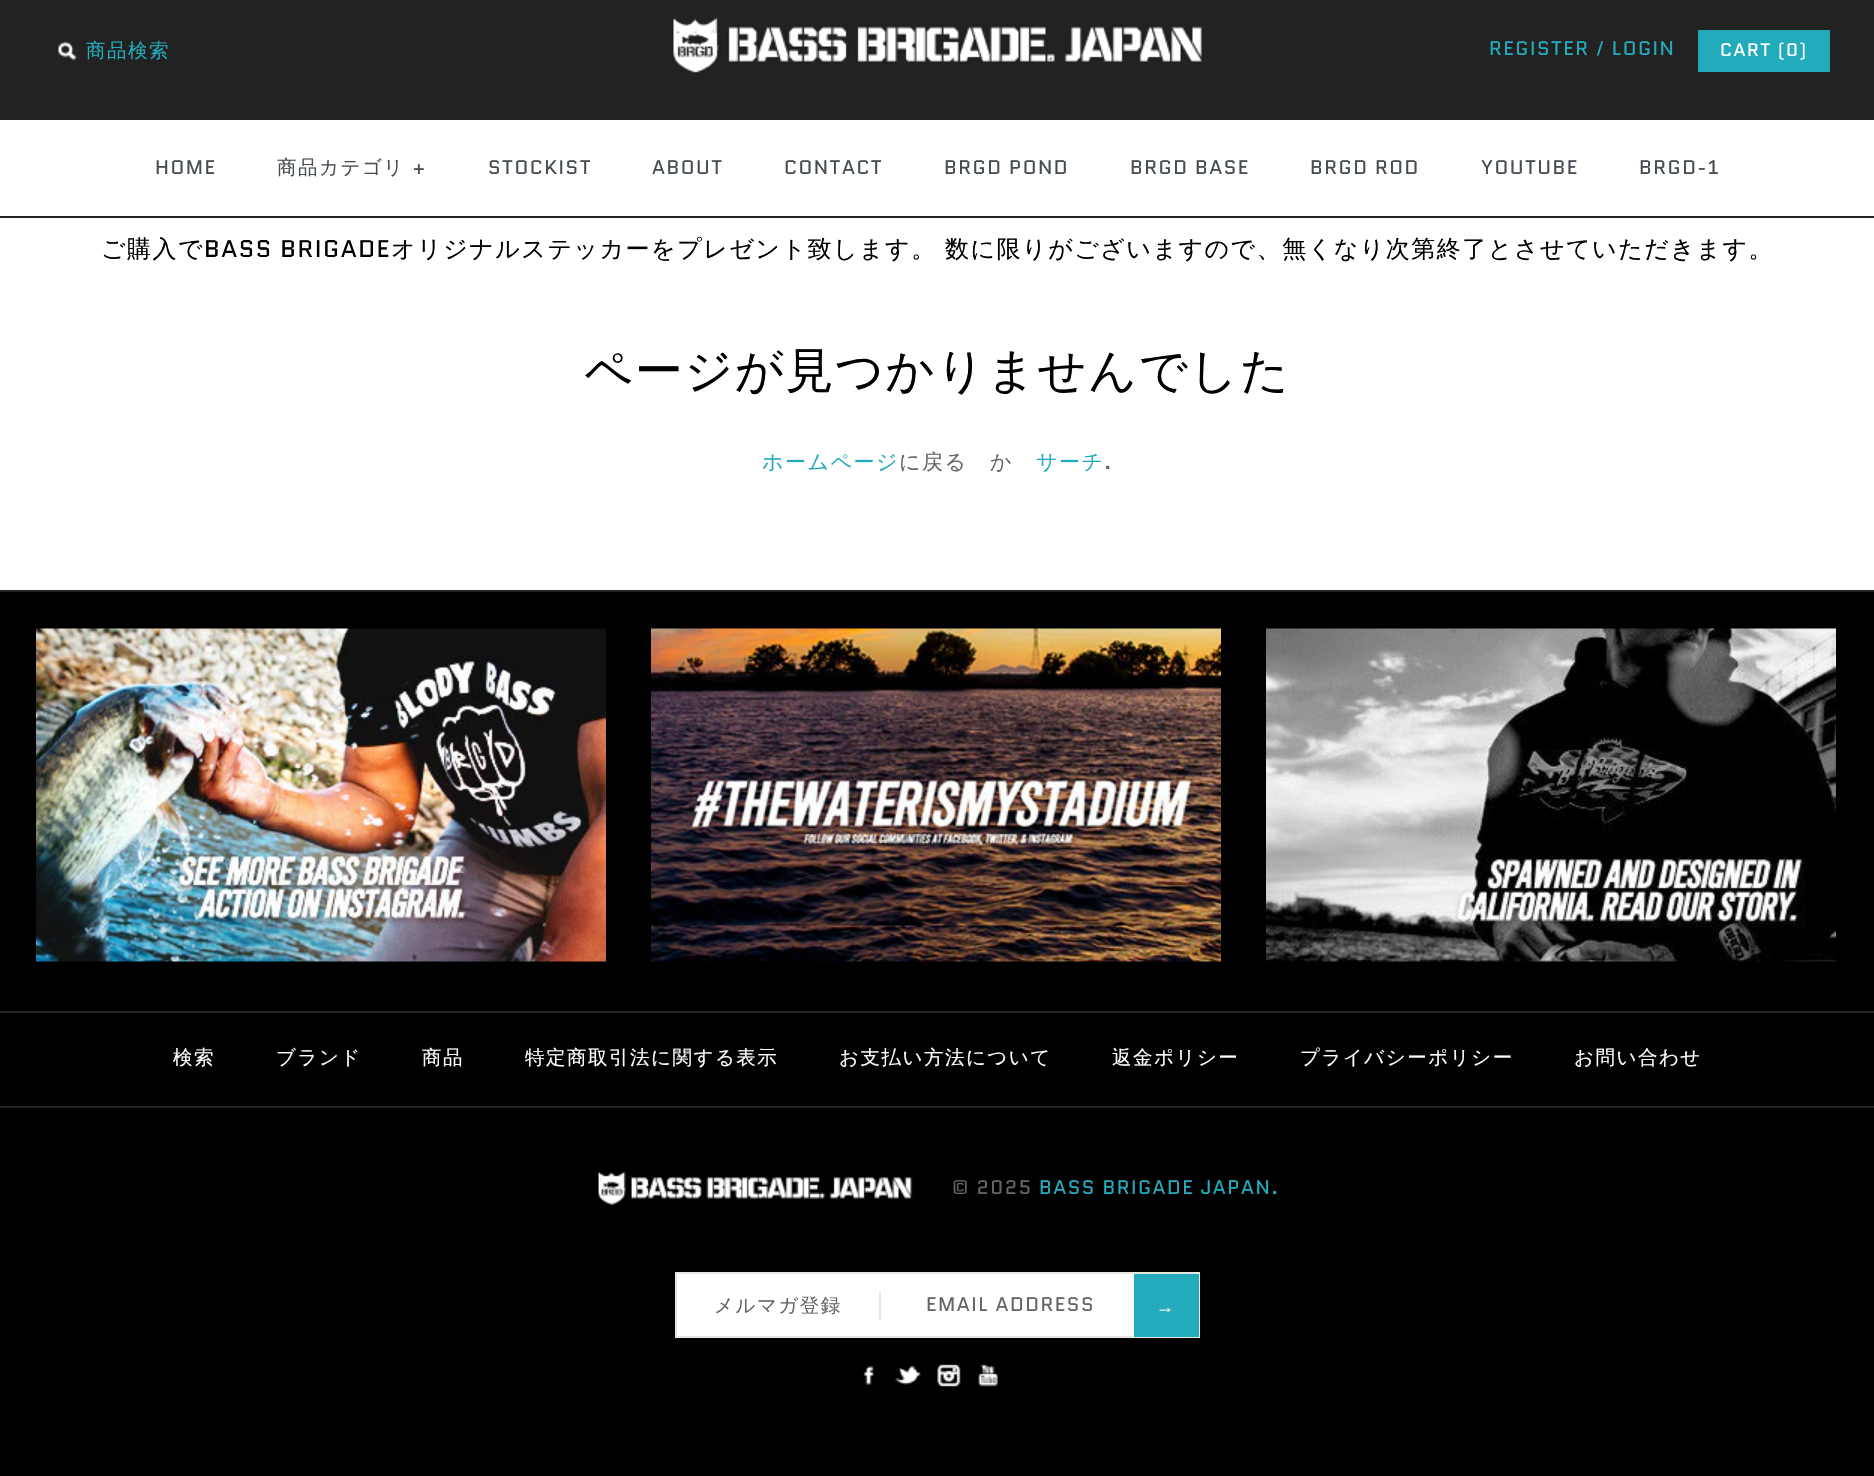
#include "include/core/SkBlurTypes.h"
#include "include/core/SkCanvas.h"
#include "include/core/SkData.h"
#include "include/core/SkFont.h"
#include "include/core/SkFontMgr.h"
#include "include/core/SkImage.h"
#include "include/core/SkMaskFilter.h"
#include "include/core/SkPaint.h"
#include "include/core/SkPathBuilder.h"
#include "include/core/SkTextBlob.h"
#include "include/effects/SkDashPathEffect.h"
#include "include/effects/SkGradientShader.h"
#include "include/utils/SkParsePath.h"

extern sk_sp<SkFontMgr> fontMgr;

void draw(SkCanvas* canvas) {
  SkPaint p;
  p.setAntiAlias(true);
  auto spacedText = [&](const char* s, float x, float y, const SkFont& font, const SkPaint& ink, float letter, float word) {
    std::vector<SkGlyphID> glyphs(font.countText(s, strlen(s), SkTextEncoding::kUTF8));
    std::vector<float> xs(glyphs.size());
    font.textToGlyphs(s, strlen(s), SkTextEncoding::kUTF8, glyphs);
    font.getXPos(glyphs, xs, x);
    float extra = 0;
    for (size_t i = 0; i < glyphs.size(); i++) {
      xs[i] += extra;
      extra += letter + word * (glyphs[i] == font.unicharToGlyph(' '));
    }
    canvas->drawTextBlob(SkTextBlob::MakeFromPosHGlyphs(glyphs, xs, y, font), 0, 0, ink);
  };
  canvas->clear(SK_ColorBLACK);
  p.setColor(SkColorSetRGB(34, 34, 34));
  canvas->drawRect(SkRect::MakeLTRB(0, 0, 1874, 120), p);
  canvas->drawImageRect(SkImages::DeferredFromEncodedData(SkData::MakeFromFileName("images/1.png")), SkRect::MakeLTRB(672, 17, 1202, 73), SkSamplingOptions());
  canvas->drawImageRect(SkImages::DeferredFromEncodedData(SkData::MakeFromFileName("images/2.png")), SkRect::MakeLTRB(58, 41, 77, 61), SkSamplingOptions());
  p.setColor(SkColorSetRGB(36, 171, 187));
  canvas->drawRect(SkRect::MakeLTRB(1698, 30, 1830, 72), p);
  p.setColor(SkColorSetRGB(34, 34, 34));
  canvas->drawRect(SkRect::MakeLTRB(0, 216, 1874, 218), p);
  p.setColor(SK_ColorWHITE);
  canvas->drawRect(SkRect::MakeLTRB(0, 120, 1874, 216), p);
  canvas->drawRect(SkRect::MakeLTRB(0, 218, 1874, 590), p);
  p.setColor(SkColorSetRGB(34, 34, 34));
  canvas->drawRect(SkRect::MakeLTRB(0, 590, 1874, 592), p);
  canvas->drawImageRect(SkImages::DeferredFromEncodedData(SkData::MakeFromFileName("images/3.png")), SkRect::MakeLTRB(36, 628, 606, 962), SkSamplingOptions());
  canvas->drawImageRect(SkImages::DeferredFromEncodedData(SkData::MakeFromFileName("images/4.png")), SkRect::MakeLTRB(651, 628, 1221, 962), SkSamplingOptions());
  canvas->drawImageRect(SkImages::DeferredFromEncodedData(SkData::MakeFromFileName("images/5.png")), SkRect::MakeLTRB(1266, 628, 1836, 962), SkSamplingOptions());
  canvas->drawRect(SkRect::MakeLTRB(0, 1011, 1874, 1013), p);
  canvas->drawRect(SkRect::MakeLTRB(0, 1106, 1874, 1108), p);
  canvas->drawImageRect(SkImages::DeferredFromEncodedData(SkData::MakeFromFileName("images/6.png")), SkRect::MakeLTRB(598, 1171, 913, 1205), SkSamplingOptions());
  p.setColor(SK_ColorWHITE);
  canvas->drawRect(SkRect::MakeLTRB(677, 1274, 1134, 1336), p);
  p.setStyle(SkPaint::kStroke_Style);
  p.setStrokeWidth(2);
  p.setColor(SkColorSetRGB(231, 231, 225));
  canvas->drawRect(SkRect::MakeLTRB(676, 1273, 1199, 1337), p);
  p.setStyle(SkPaint::kFill_Style);
  canvas->drawRect(SkRect::MakeLTRB(879, 1292, 881, 1320), p);
  p.setColor(SkColorSetRGB(36, 171, 187));
  canvas->drawRect(SkRect::MakeLTRB(1134, 1274, 1199, 1337), p);
  canvas->drawImageRect(SkImages::DeferredFromEncodedData(SkData::MakeFromFileName("images/7.png")), SkRect::MakeLTRB(863, 1366, 874, 1385), SkSamplingOptions());
  canvas->drawImageRect(SkImages::DeferredFromEncodedData(SkData::MakeFromFileName("images/8.png")), SkRect::MakeLTRB(895, 1366, 922, 1385), SkSamplingOptions());
  canvas->drawImageRect(SkImages::DeferredFromEncodedData(SkData::MakeFromFileName("images/9.png")), SkRect::MakeLTRB(937, 1364, 961, 1387), SkSamplingOptions());
  canvas->drawImageRect(SkImages::DeferredFromEncodedData(SkData::MakeFromFileName("images/10.png")), SkRect::MakeLTRB(977, 1364, 998, 1387), SkSamplingOptions());
  SkFont font1(fontMgr->matchFamilyStyle("WenQuanYi Zen Hei", SkFontStyle(500, SkFontStyle::kNormal_Width, SkFontStyle::kUpright_Slant)), 19.5f);
  font1.setSubpixel(true);
  spacedText("商品検索", 86, 57, font1, p, 1.5f, 0);
  SkFont font2(fontMgr->matchFamilyStyle("Quantico", SkFontStyle::Normal()), 19.5f);
  font2.setSubpixel(true);
  spacedText("REGISTER / LOGIN", 1489, 55, font2, p, 1.5f, 0);
  SkFont font3(fontMgr->matchFamilyStyle("Quantico", SkFontStyle::Normal()), 18);
  font3.setSubpixel(true);
  p.setColor(SK_ColorWHITE);
  spacedText("CART (0)", 1720, 56, font3, p, 1.5f, 0);
  p.setColor(SkColorSetRGB(70, 78, 84));
  spacedText("HOME", 155, 174, font2, p, 1.5f, 0);
  spacedText("商品カテゴリ", 277, 174, font1, p, 1.5f, 0);
  spacedText("+", 413, 174, font2, p, 1.5f, 0);
  spacedText("STOCKIST", 488, 174, font2, p, 1.5f, 0);
  spacedText("ABOUT", 652, 174, font2, p, 1.5f, 0);
  spacedText("CONTACT", 784, 174, font2, p, 1.5f, 0);
  spacedText("BRGD POND", 944, 174, font2, p, 1.5f, 0);
  spacedText("BRGD BASE", 1130, 174, font2, p, 1.5f, 0);
  spacedText("BRGD ROD", 1310, 174, font2, p, 1.5f, 0);
  spacedText("YOUTUBE", 1481, 174, font2, p, 1.5f, 0);
  spacedText("BRGD-1", 1639, 174, font2, p, 1.5f, 0);
  SkFont font4(fontMgr->matchFamilyStyle("WenQuanYi Zen Hei", SkFontStyle(500, SkFontStyle::kNormal_Width, SkFontStyle::kUpright_Slant)), 24);
  font4.setSubpixel(true);
  p.setColor(SK_ColorBLACK);
  spacedText("ご購入で", 101, 257, font4, p, 1.5f, 0);
  SkFont font5(fontMgr->matchFamilyStyle("Quantico", SkFontStyle::Normal()), 24);
  font5.setSubpixel(true);
  spacedText("BASS BRIGADE", 204, 257, font5, p, 1.5f, 0);
  spacedText("オリジナルステッカーをプレゼント致します。", 391, 257, font4, p, 1.5f, 0);
  spacedText("数に限りがございますので、無くなり次第終了とさせていただきます。", 945, 257, font4, p, 1.5f, 0);
  SkFont font6(fontMgr->matchFamilyStyle("WenQuanYi Zen Hei", SkFontStyle(500, SkFontStyle::kNormal_Width, SkFontStyle::kUpright_Slant)), 48);
  font6.setSubpixel(true);
  spacedText("ページが見つかりませんでした", 584, 387, font6, p, 1.5f, 0);
  SkFont font7(fontMgr->matchFamilyStyle("WenQuanYi Zen Hei", SkFontStyle(500, SkFontStyle::kNormal_Width, SkFontStyle::kUpright_Slant)), 21);
  font7.setSubpixel(true);
  p.setColor(SkColorSetRGB(36, 171, 187));
  spacedText("ホームページ", 762, 469, font7, p, 1.5f, 0);
  p.setColor(SkColorSetRGB(102, 102, 102));
  spacedText("に戻る　か", 899, 469, font7, p, 1.5f, 0);
  p.setColor(SkColorSetRGB(36, 171, 187));
  spacedText("サーチ", 1036, 469, font7, p, 1.5f, 0);
  SkFont font8(fontMgr->matchFamilyStyle("Quantico", SkFontStyle::Normal()), 21);
  font8.setSubpixel(true);
  p.setColor(SkColorSetRGB(102, 102, 102));
  spacedText(".", 1104, 469, font8, p, 1.5f, 0);
  p.setColor(SK_ColorWHITE);
  spacedText("検索", 173, 1064, font1, p, 1.5f, 0);
  spacedText("ブランド", 276, 1064, font1, p, 1.5f, 0);
  spacedText("商品", 422, 1064, font1, p, 1.5f, 0);
  spacedText("特定商取引法に関する表示", 525, 1064, font1, p, 1.5f, 0);
  spacedText("お支払い方法について", 839, 1064, font1, p, 1.5f, 0);
  spacedText("返金ポリシー", 1112, 1064, font1, p, 1.5f, 0);
  spacedText("プライバシーポリシー", 1300, 1064, font1, p, 1.5f, 0);
  spacedText("お問い合わせ", 1574, 1064, font1, p, 1.5f, 0);
  p.setColor(SkColorSetRGB(102, 102, 102));
  spacedText("© 2025", 952, 1194, font2, p, 1.5f, 0);
  p.setColor(SkColorSetRGB(36, 171, 187));
  spacedText("BASS BRIGADE JAPAN.", 1039, 1194, font2, p, 1.5f, 0);
  p.setColor(SkColorSetRGB(102, 102, 102));
  spacedText("メルマガ登録", 714, 1312, font1, p, 1.5f, 0);
  spacedText("EMAIL ADDRESS", 926, 1311, font2, p, 1.5f, 0);
  SkFont font9(fontMgr->matchFamilyStyle("Liberation Serif", SkFontStyle::Normal()), 18);
  font9.setSubpixel(true);
  p.setColor(SK_ColorWHITE);
  spacedText("→", 1156, 1313, font9, p, 1.5f, 0);
}
